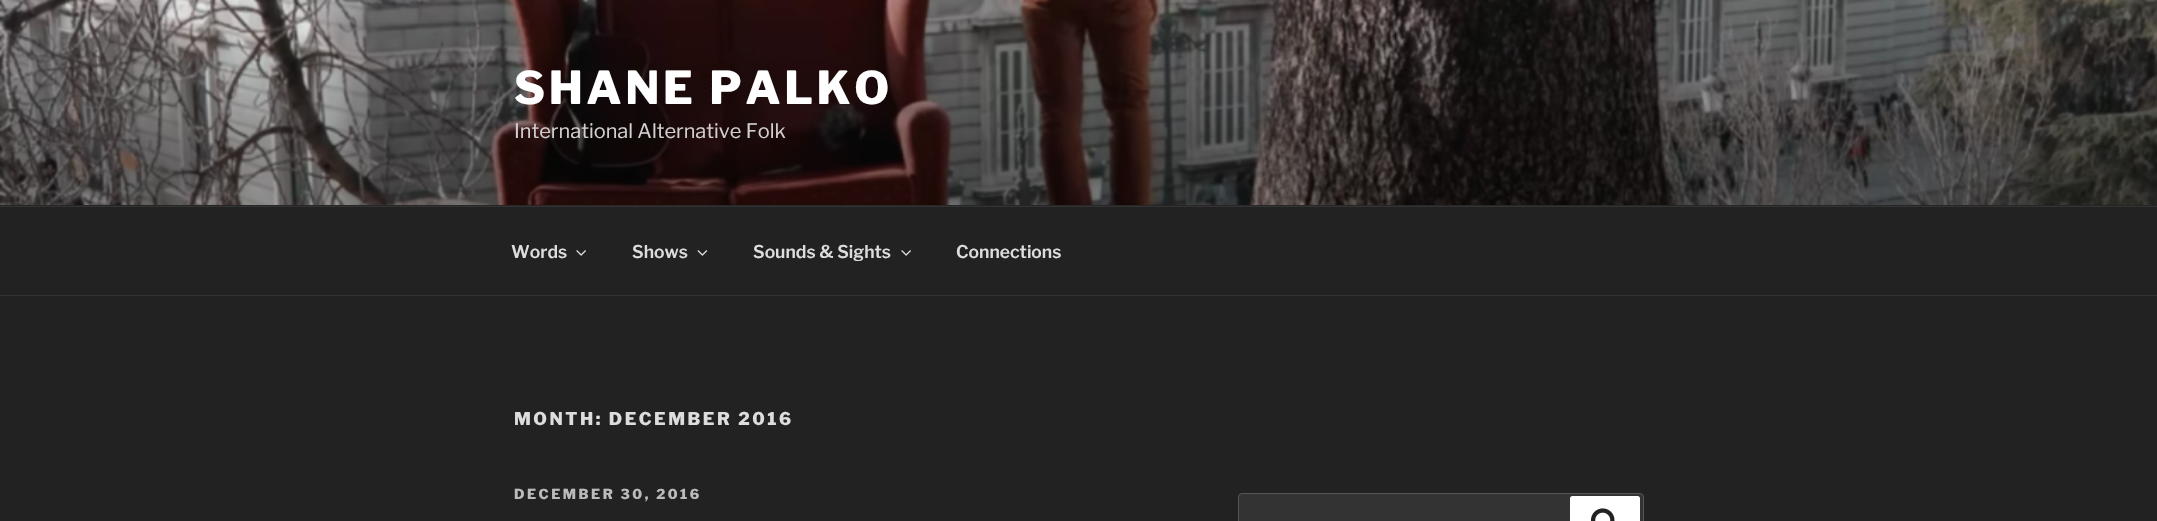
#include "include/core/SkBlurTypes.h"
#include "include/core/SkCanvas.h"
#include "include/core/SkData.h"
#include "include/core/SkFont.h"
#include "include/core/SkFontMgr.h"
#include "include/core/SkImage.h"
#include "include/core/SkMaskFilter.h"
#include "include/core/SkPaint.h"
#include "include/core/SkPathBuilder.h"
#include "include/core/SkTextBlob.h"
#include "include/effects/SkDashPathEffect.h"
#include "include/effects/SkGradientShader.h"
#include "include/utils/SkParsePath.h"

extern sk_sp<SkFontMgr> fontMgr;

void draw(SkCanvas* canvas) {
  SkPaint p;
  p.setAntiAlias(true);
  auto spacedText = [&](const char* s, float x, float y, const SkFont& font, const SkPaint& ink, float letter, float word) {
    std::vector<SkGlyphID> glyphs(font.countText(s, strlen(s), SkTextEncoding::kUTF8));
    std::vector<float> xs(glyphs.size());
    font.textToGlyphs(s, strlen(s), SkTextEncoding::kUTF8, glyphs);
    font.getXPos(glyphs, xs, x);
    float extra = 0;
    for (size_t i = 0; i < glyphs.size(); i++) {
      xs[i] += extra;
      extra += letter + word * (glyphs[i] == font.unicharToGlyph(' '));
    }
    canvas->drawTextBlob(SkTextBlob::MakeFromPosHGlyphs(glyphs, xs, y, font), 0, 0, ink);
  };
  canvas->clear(SkColorSetRGB(34, 34, 34));
  p.setColor(SkColorSetRGB(38, 38, 38));
  canvas->drawRect(SkRect::MakeLTRB(0, 205, 2157, 206), p);
  canvas->drawImageRect(SkImages::DeferredFromEncodedData(SkData::MakeFromFileName("images/1.png")), SkRect::MakeLTRB(0, 0, 2157, 205), SkSamplingOptions());
  p.setColor(SkColorSetRGB(51, 51, 51));
  canvas->drawRect(SkRect::MakeLTRB(0, 206, 2157, 207), p);
  canvas->drawRect(SkRect::MakeLTRB(0, 295, 2157, 296), p);
  canvas->drawImageRect(SkImages::DeferredFromEncodedData(SkData::MakeFromFileName("images/2.png")), SkRect::MakeLTRB(576, 250, 586, 256), SkSamplingOptions());
  canvas->drawImageRect(SkImages::DeferredFromEncodedData(SkData::MakeFromFileName("images/3.png")), SkRect::MakeLTRB(697, 250, 708, 256), SkSamplingOptions());
  canvas->drawImageRect(SkImages::DeferredFromEncodedData(SkData::MakeFromFileName("images/2.png")), SkRect::MakeLTRB(901, 250, 911, 256), SkSamplingOptions());
  canvas->drawRoundRect(SkRect::MakeLTRB(1238.5f, 493.5f, 1643.5f, 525.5f), 3.5f, 3.5f, p);
  p.setStyle(SkPaint::kStroke_Style);
  p.setStrokeWidth(1);
  p.setColor(SkColorSetRGB(85, 85, 85));
  canvas->drawRoundRect(SkRect::MakeLTRB(1238.5f, 493.5f, 1643.5f, 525.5f), 3.5f, 3.5f, p);
  p.setStyle(SkPaint::kFill_Style);
  p.setColor(SK_ColorWHITE);
  canvas->drawRoundRect(SkRect::MakeLTRB(1570, 496, 1640, 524), 2.5f, 2.5f, p);
  canvas->drawImageRect(SkImages::DeferredFromEncodedData(SkData::MakeFromFileName("images/4.png")), SkRect::MakeLTRB(1590, 508, 1615, 521), SkSamplingOptions());
  SkFont font1(fontMgr->matchFamilyStyle("Libre Franklin", SkFontStyle(800, SkFontStyle::kNormal_Width, SkFontStyle::kUpright_Slant)), 45);
  font1.setSubpixel(true);
  spacedText("SHANE PALKO", 514, 104, font1, p, 3.6f, 0);
  SkFont font2(fontMgr->matchFamilyStyle("Libre Franklin", SkFontStyle::Normal()), 20);
  font2.setSubpixel(true);
  p.setColor(SkColorSetRGB(210, 207, 207));
  canvas->drawString("International Alternative Folk", 514, 138, font2, p);
  SkFont font3(fontMgr->matchFamilyStyle("Libre Franklin", SkFontStyle(600, SkFontStyle::kNormal_Width, SkFontStyle::kUpright_Slant)), 17.5f);
  font3.setSubpixel(true);
  p.setColor(SkColorSetRGB(221, 221, 221));
  canvas->drawString("Words", 511, 258, font3, p);
  canvas->drawString("Shows", 632, 258, font3, p);
  canvas->drawString("Sounds & Sights", 753, 258, font3, p);
  canvas->drawString("Connections", 956, 258, font3, p);
  SkFont font4(fontMgr->matchFamilyStyle("Libre Franklin", SkFontStyle(800, SkFontStyle::kNormal_Width, SkFontStyle::kUpright_Slant)), 17.5f);
  font4.setSubpixel(true);
  spacedText("MONTH: DECEMBER 2016", 514, 425, font4, p, 2.5f, 0);
  SkFont font5(fontMgr->matchFamilyStyle("Libre Franklin", SkFontStyle(800, SkFontStyle::kNormal_Width, SkFontStyle::kUpright_Slant)), 13.75f);
  font5.setSubpixel(true);
  p.setColor(SkColorSetRGB(187, 187, 187));
  spacedText("DECEMBER 30, 2016", 514, 499, font5, p, 2.5f, 0);
}
